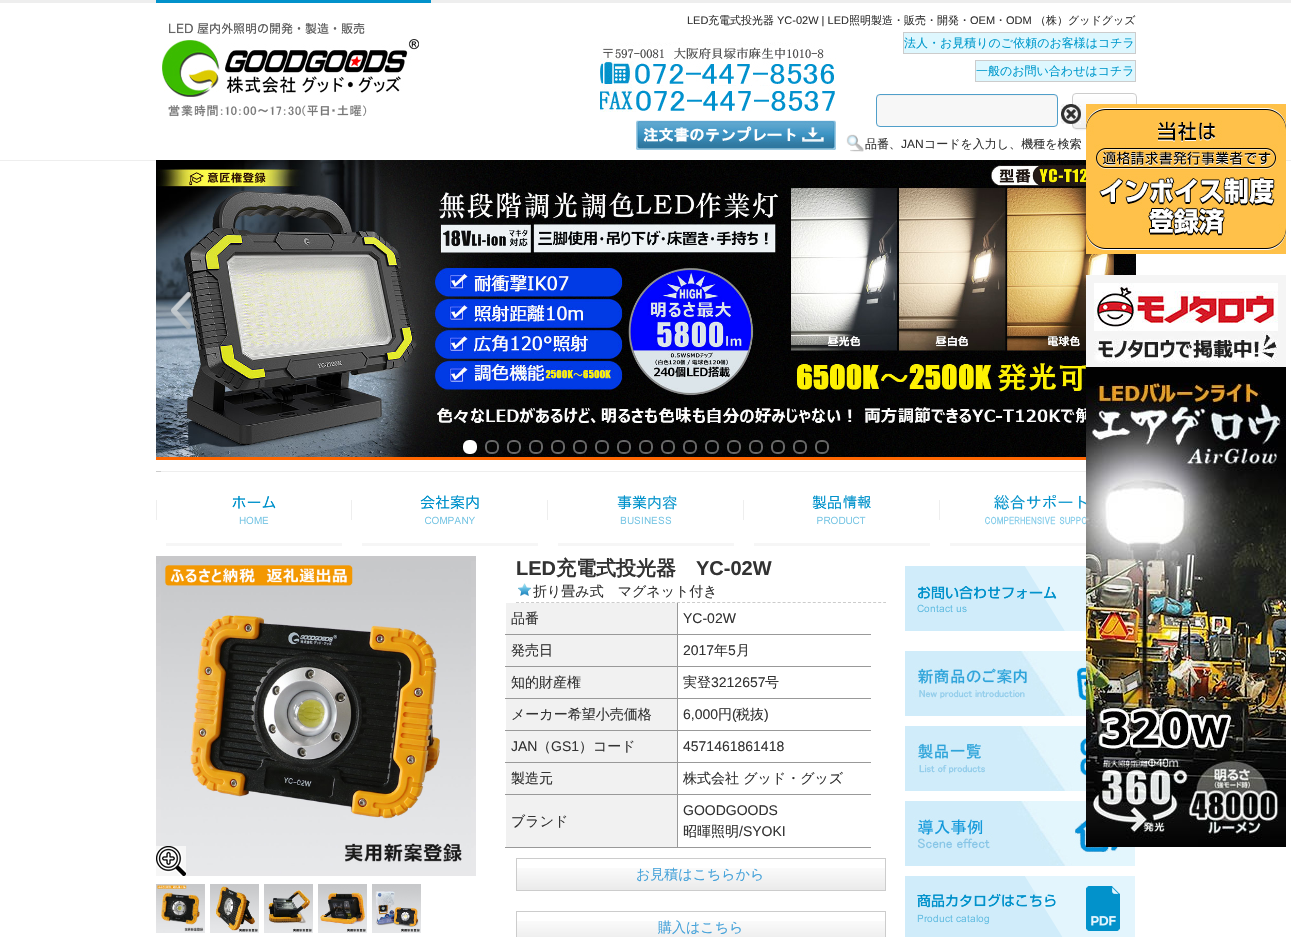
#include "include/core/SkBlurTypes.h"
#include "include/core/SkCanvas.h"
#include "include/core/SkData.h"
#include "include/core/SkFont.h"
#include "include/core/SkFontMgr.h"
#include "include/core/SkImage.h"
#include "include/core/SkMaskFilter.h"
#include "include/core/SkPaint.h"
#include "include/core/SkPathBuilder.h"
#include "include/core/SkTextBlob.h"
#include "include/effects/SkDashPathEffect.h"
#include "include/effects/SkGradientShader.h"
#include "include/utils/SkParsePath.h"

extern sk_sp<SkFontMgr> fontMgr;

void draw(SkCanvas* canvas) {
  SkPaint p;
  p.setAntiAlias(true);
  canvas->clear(SK_ColorWHITE);
  p.setColor(SkColorSetRGB(238, 238, 238));
  canvas->drawRect(SkRect::MakeLTRB(0, 0, 1291, 3), p);
  p.setColor(SkColorSetRGB(2, 146, 203));
  canvas->drawRect(SkRect::MakeLTRB(156, 0, 431, 3), p);
  canvas->drawImageRect(SkImages::DeferredFromEncodedData(SkData::MakeFromFileName("images/1.png")), SkRect::MakeLTRB(162, 22, 419, 117), SkSamplingOptions());
  canvas->drawImageRect(SkImages::DeferredFromEncodedData(SkData::MakeFromFileName("images/2.png")), SkRect::MakeLTRB(600, 42, 836, 112), SkSamplingOptions());
  p.setColor(SkColorSetRGB(222, 247, 254));
  canvas->drawRect(SkRect::MakeLTRB(903.5f, 32.5f, 1135.5f, 53.5f), p);
  p.setStyle(SkPaint::kStroke_Style);
  p.setStrokeWidth(1);
  p.setColor(SkColorSetRGB(204, 204, 204));
  canvas->drawRect(SkRect::MakeLTRB(903.5f, 32.5f, 1135.5f, 53.5f), p);
  p.setStyle(SkPaint::kFill_Style);
  p.setColor(SkColorSetRGB(222, 247, 254));
  canvas->drawRect(SkRect::MakeLTRB(975.5f, 60.5f, 1135.5f, 81.5f), p);
  p.setStyle(SkPaint::kStroke_Style);
  p.setColor(SkColorSetRGB(204, 204, 204));
  canvas->drawRect(SkRect::MakeLTRB(975.5f, 60.5f, 1135.5f, 81.5f), p);
  canvas->drawImageRect(SkImages::DeferredFromEncodedData(SkData::MakeFromFileName("images/3.png")), SkRect::MakeLTRB(636, 120, 836, 150), SkSamplingOptions());
  p.setStyle(SkPaint::kFill_Style);
  p.setColor(SkColorSetRGB(247, 247, 247));
  canvas->drawRoundRect(SkRect::MakeLTRB(876, 94, 1058, 127), 4, 4, p);
  p.setColor(SkColorSetRGB(240, 240, 240));
  canvas->drawPath(SkPathBuilder().moveTo(880, 96).lineTo(1055, 96).lineTo(1056, 97).lineTo(1057, 99).lineTo(1057, 98).cubicTo(1057, 96, 1056, 95, 1054, 95).lineTo(880, 95).cubicTo(878, 95, 877, 96, 877, 98).lineTo(877, 99).cubicTo(877, 97, 878, 96, 880, 96).close().detach(), p);
  p.setStyle(SkPaint::kStroke_Style);
  p.setColor(SkColorSetRGB(80, 159, 202));
  canvas->drawRoundRect(SkRect::MakeLTRB(876.5f, 94.5f, 1057.5f, 126.5f), 3.5f, 3.5f, p);
  p.setStyle(SkPaint::kFill_Style);
  p.setColor(SkColorSetRGB(242, 242, 242));
  canvas->drawPath(SkPathBuilder().moveTo(1072, 125).cubicTo(1072, 132, 1080, 130, 1086, 130).lineTo(1124, 130).cubicTo(1129, 130, 1137, 132, 1137, 125).cubicTo(1137, 127, 1135, 129, 1133, 129).lineTo(1076, 129).cubicTo(1074, 129, 1072, 127, 1072, 125).close().detach(), p);
  canvas->save();
  canvas->clipPath(SkPathBuilder().moveTo(1076, 93).lineTo(1133, 93).cubicTo(1135, 93, 1137, 95, 1137, 97).lineTo(1137, 125).cubicTo(1137, 127, 1135, 129, 1133, 129).lineTo(1076, 129).cubicTo(1074, 129, 1072, 127, 1072, 125).lineTo(1072, 97).cubicTo(1072, 95, 1074, 93, 1076, 93).close().detach(), true);
  {
    const SkColor colors[] = {SK_ColorWHITE, SkColorSetRGB(239, 239, 239)};
    const float stops[] = {0, 1};
    const SkPoint ends[] = {{1105, 94}, {1105, 128}};
    p.setShader(SkGradientShader::MakeLinear(ends, colors, stops, 2, SkTileMode::kClamp));
    p.setAlpha(255);
  }
  canvas->drawRect(SkRect::MakeLTRB(1072, 94, 1137, 128), p);
  canvas->restore();
  p.setStyle(SkPaint::kStroke_Style);
  p.setShader(nullptr);
  p.setColor(SkColorSetRGB(204, 204, 204));
  canvas->drawRoundRect(SkRect::MakeLTRB(1072.5f, 93.5f, 1136.5f, 128.5f), 3.5f, 3.5f, p);
  canvas->drawImageRect(SkImages::DeferredFromEncodedData(SkData::MakeFromFileName("images/4.png")), SkRect::MakeLTRB(846, 134, 864, 152), SkSamplingOptions());
  p.setStyle(SkPaint::kFill_Style);
  p.setColor(SkColorSetRGB(238, 238, 238));
  canvas->drawRect(SkRect::MakeLTRB(0, 160, 1291, 161), p);
  canvas->drawImageRect(SkImages::DeferredFromEncodedData(SkData::MakeFromFileName("images/5.png")), SkRect::MakeLTRB(156, 160, 1136, 460), SkSamplingOptions());
  canvas->drawImageRect(SkImages::DeferredFromEncodedData(SkData::MakeFromFileName("images/6.png")), SkRect::MakeLTRB(1061, 104, 1081, 124), SkSamplingOptions());
  canvas->drawImageRect(SkImages::DeferredFromEncodedData(SkData::MakeFromFileName("images/7.png")), SkRect::MakeLTRB(1086, 104, 1286, 254), SkSamplingOptions());
  canvas->drawImageRect(SkImages::DeferredFromEncodedData(SkData::MakeFromFileName("images/8.png")), SkRect::MakeLTRB(1086, 275, 1286, 367), SkSamplingOptions());
  canvas->drawImageRect(SkImages::DeferredFromEncodedData(SkData::MakeFromFileName("images/28.png")), SkRect::MakeLTRB(905, 801, 1135, 866), SkSamplingOptions());
  canvas->drawImageRect(SkImages::DeferredFromEncodedData(SkData::MakeFromFileName("images/9.png")), SkRect::MakeLTRB(1086, 367, 1286, 847), SkSamplingOptions());
  canvas->drawImageRect(SkImages::DeferredFromEncodedData(SkData::MakeFromFileName("images/10.png")), SkRect::MakeLTRB(156, 471, 352, 546), SkSamplingOptions());
  canvas->drawImageRect(SkImages::DeferredFromEncodedData(SkData::MakeFromFileName("images/11.png")), SkRect::MakeLTRB(352, 471, 548, 546), SkSamplingOptions());
  canvas->drawImageRect(SkImages::DeferredFromEncodedData(SkData::MakeFromFileName("images/12.png")), SkRect::MakeLTRB(548, 471, 744, 546), SkSamplingOptions());
  canvas->drawImageRect(SkImages::DeferredFromEncodedData(SkData::MakeFromFileName("images/13.png")), SkRect::MakeLTRB(744, 471, 940, 546), SkSamplingOptions());
  canvas->drawImageRect(SkImages::DeferredFromEncodedData(SkData::MakeFromFileName("images/14.png")), SkRect::MakeLTRB(940, 471, 1086, 546), SkSamplingOptions());
  canvas->drawImageRect(SkImages::DeferredFromEncodedData(SkData::MakeFromFileName("images/15.png")), SkRect::MakeLTRB(156, 556, 476, 876), SkSamplingOptions());
  canvas->drawImageRect(SkImages::DeferredFromEncodedData(SkData::MakeFromFileName("images/16.png")), SkRect::MakeLTRB(156, 846, 186, 876), SkSamplingOptions());
  canvas->drawImageRect(SkImages::DeferredFromEncodedData(SkData::MakeFromFileName("images/17.png")), SkRect::MakeLTRB(156, 884, 205, 933), SkSamplingOptions());
  canvas->drawImageRect(SkImages::DeferredFromEncodedData(SkData::MakeFromFileName("images/18.png")), SkRect::MakeLTRB(210, 884, 259, 933), SkSamplingOptions());
  canvas->drawImageRect(SkImages::DeferredFromEncodedData(SkData::MakeFromFileName("images/19.png")), SkRect::MakeLTRB(264, 884, 313, 933), SkSamplingOptions());
  canvas->drawImageRect(SkImages::DeferredFromEncodedData(SkData::MakeFromFileName("images/20.png")), SkRect::MakeLTRB(318, 884, 367, 933), SkSamplingOptions());
  canvas->drawImageRect(SkImages::DeferredFromEncodedData(SkData::MakeFromFileName("images/21.png")), SkRect::MakeLTRB(372, 884, 421, 933), SkSamplingOptions());
  p.setStyle(SkPaint::kStroke_Style);
  p.setColor(SkColorSetRGB(204, 204, 204));
  p.setPathEffect(SkDashPathEffect::Make({{3, 2.03f}}, 0));
  canvas->drawPath(SkPathBuilder().moveTo(516, 602.5f).lineTo(886, 602.5f).detach(), p);
  p.setPathEffect(nullptr);
  canvas->drawImageRect(SkImages::DeferredFromEncodedData(SkData::MakeFromFileName("images/22.png")), SkRect::MakeLTRB(518, 583, 531, 596), SkSamplingOptions());
  p.setStyle(SkPaint::kFill_Style);
  p.setColor(SkColorSetRGB(241, 241, 241));
  canvas->drawRect(SkRect::MakeLTRB(506, 603, 677, 634), p);
  p.setColor(SkColorSetRGB(153, 153, 153));
  canvas->drawRect(SkRect::MakeLTRB(677, 847, 871, 848), p);
  canvas->drawRect(SkRect::MakeLTRB(677, 794, 678, 848), p);
  canvas->drawRect(SkRect::MakeLTRB(677, 794, 871, 795), p);
  canvas->drawRect(SkRect::MakeLTRB(677, 762, 678, 795), p);
  canvas->drawRect(SkRect::MakeLTRB(677, 762, 871, 763), p);
  canvas->drawRect(SkRect::MakeLTRB(677, 730, 678, 763), p);
  canvas->drawRect(SkRect::MakeLTRB(677, 730, 871, 731), p);
  canvas->drawRect(SkRect::MakeLTRB(677, 698, 678, 731), p);
  canvas->drawRect(SkRect::MakeLTRB(677, 698, 871, 699), p);
  canvas->drawRect(SkRect::MakeLTRB(677, 666, 678, 699), p);
  canvas->drawRect(SkRect::MakeLTRB(677, 666, 871, 667), p);
  canvas->drawRect(SkRect::MakeLTRB(677, 634, 678, 667), p);
  canvas->drawRect(SkRect::MakeLTRB(677, 634, 871, 635), p);
  canvas->drawRect(SkRect::MakeLTRB(677, 603, 678, 635), p);
  canvas->drawRect(SkRect::MakeLTRB(505, 634, 678, 635), p);
  p.setColor(SkColorSetRGB(241, 241, 241));
  canvas->drawRect(SkRect::MakeLTRB(506, 635, 677, 666), p);
  p.setColor(SkColorSetRGB(153, 153, 153));
  canvas->drawRect(SkRect::MakeLTRB(505, 666, 678, 667), p);
  p.setColor(SkColorSetRGB(241, 241, 241));
  canvas->drawRect(SkRect::MakeLTRB(506, 667, 677, 698), p);
  p.setColor(SkColorSetRGB(153, 153, 153));
  canvas->drawRect(SkRect::MakeLTRB(505, 698, 678, 699), p);
  p.setColor(SkColorSetRGB(241, 241, 241));
  canvas->drawRect(SkRect::MakeLTRB(506, 699, 677, 730), p);
  p.setColor(SkColorSetRGB(153, 153, 153));
  canvas->drawRect(SkRect::MakeLTRB(505, 730, 678, 731), p);
  p.setColor(SkColorSetRGB(241, 241, 241));
  canvas->drawRect(SkRect::MakeLTRB(506, 731, 677, 762), p);
  p.setColor(SkColorSetRGB(153, 153, 153));
  canvas->drawRect(SkRect::MakeLTRB(505, 762, 678, 763), p);
  p.setColor(SkColorSetRGB(241, 241, 241));
  canvas->drawRect(SkRect::MakeLTRB(506, 763, 677, 794), p);
  p.setColor(SkColorSetRGB(153, 153, 153));
  canvas->drawRect(SkRect::MakeLTRB(505, 794, 678, 795), p);
  p.setColor(SkColorSetRGB(241, 241, 241));
  canvas->drawRect(SkRect::MakeLTRB(506, 795, 677, 847), p);
  p.setColor(SkColorSetRGB(153, 153, 153));
  canvas->drawRect(SkRect::MakeLTRB(505, 847, 678, 848), p);
  canvas->drawImageRect(SkImages::DeferredFromEncodedData(SkData::MakeFromFileName("images/23.png")), SkRect::MakeLTRB(517, 868, 885, 890), SkSamplingOptions());
  p.setStyle(SkPaint::kStroke_Style);
  p.setColor(SkColorSetRGB(204, 204, 204));
  canvas->drawRect(SkRect::MakeLTRB(516.5f, 858.5f, 885.5f, 890.5f), p);
  canvas->drawImageRect(SkImages::DeferredFromEncodedData(SkData::MakeFromFileName("images/24.png")), SkRect::MakeLTRB(517, 921, 885, 937), SkSamplingOptions());
  canvas->drawRect(SkRect::MakeLTRB(516.5f, 911.5f, 885.5f, 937.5f), p);
  canvas->drawImageRect(SkImages::DeferredFromEncodedData(SkData::MakeFromFileName("images/25.png")), SkRect::MakeLTRB(905, 566, 1086, 631), SkSamplingOptions());
  canvas->drawImageRect(SkImages::DeferredFromEncodedData(SkData::MakeFromFileName("images/26.png")), SkRect::MakeLTRB(905, 651, 1086, 716), SkSamplingOptions());
  canvas->drawImageRect(SkImages::DeferredFromEncodedData(SkData::MakeFromFileName("images/27.png")), SkRect::MakeLTRB(905, 726, 1086, 791), SkSamplingOptions());
  canvas->drawImageRect(SkImages::DeferredFromEncodedData(SkData::MakeFromFileName("images/29.png")), SkRect::MakeLTRB(905, 876, 1135, 937), SkSamplingOptions());
  SkFont font1(fontMgr->matchFamilyStyle("Liberation Sans", SkFontStyle::Normal()), 11);
  font1.setSubpixel(true);
  p.setStyle(SkPaint::kFill_Style);
  p.setColor(SkColorSetRGB(51, 51, 51));
  canvas->drawString("LED", 687, 24, font1, p);
  SkFont font2(fontMgr->matchFamilyStyle("WenQuanYi Zen Hei", SkFontStyle(500, SkFontStyle::kNormal_Width, SkFontStyle::kUpright_Slant)), 11);
  font2.setSubpixel(true);
  canvas->drawString("充電式投光器", 708, 24, font2, p);
  canvas->drawString("YC-02W | LED", 777, 24, font1, p);
  canvas->drawString("照明製造・販売・開発・", 849, 24, font2, p);
  canvas->drawString("OEM", 970, 24, font1, p);
  canvas->drawString("・", 995, 24, font2, p);
  canvas->drawString("ODM", 1006, 24, font1, p);
  canvas->drawString("（株）グッドグッズ", 1035, 24, font2, p);
  SkFont font3(fontMgr->matchFamilyStyle("WenQuanYi Zen Hei", SkFontStyle(500, SkFontStyle::kNormal_Width, SkFontStyle::kUpright_Slant)), 12);
  font3.setSubpixel(true);
  p.setColor(SkColorSetRGB(0, 153, 204));
  canvas->drawString("法人・お見積りのご依頼のお客様はコチラ", 904, 47, font3, p);
  canvas->drawString("一般のお問い合わせはコチラ", 976, 75, font3, p);
  p.setColor(SkColorSetRGB(51, 51, 51));
  canvas->drawString("品番、", 865, 148, font3, p);
  SkFont font4(fontMgr->matchFamilyStyle("Liberation Sans", SkFontStyle::Normal()), 12);
  font4.setSubpixel(true);
  canvas->drawString("JAN", 901, 148, font4, p);
  canvas->drawString("コードを入力し、機種を検索", 924, 148, font3, p);
  SkFont font5(fontMgr->matchFamilyStyle("Liberation Sans", SkFontStyle::Bold()), 20);
  font5.setSubpixel(true);
  canvas->drawString("LED", 516, 575, font5, p);
  SkFont font6(fontMgr->matchFamilyStyle("WenQuanYi Zen Hei", SkFontStyle::Bold()), 20);
  font6.setSubpixel(true);
  canvas->drawString("充電式投光器", 556, 575, font6, p);
  canvas->drawString("YC-02W", 696, 575, font5, p);
  SkFont font7(fontMgr->matchFamilyStyle("WenQuanYi Zen Hei", SkFontStyle(500, SkFontStyle::kNormal_Width, SkFontStyle::kUpright_Slant)), 14);
  font7.setSubpixel(true);
  canvas->drawString("折り畳み式　マグネット付き", 533, 596, font7, p);
  canvas->drawString("品番", 511, 623, font7, p);
  SkFont font8(fontMgr->matchFamilyStyle("Liberation Sans", SkFontStyle::Normal()), 14);
  font8.setSubpixel(true);
  canvas->drawString("YC-02W", 683, 623, font8, p);
  canvas->drawString("発売日", 511, 655, font7, p);
  canvas->drawString("2017", 683, 655, font8, p);
  canvas->drawString("年", 714, 655, font7, p);
  canvas->drawString("5", 728, 655, font8, p);
  canvas->drawString("月", 736, 655, font7, p);
  canvas->drawString("知的財産権", 511, 687, font7, p);
  canvas->drawString("実登", 683, 687, font7, p);
  canvas->drawString("3212657", 711, 687, font8, p);
  canvas->drawString("号", 765, 687, font7, p);
  canvas->drawString("メーカー希望小売価格", 511, 719, font7, p);
  canvas->drawString("6,000", 683, 719, font8, p);
  canvas->drawString("円", 718, 719, font7, p);
  canvas->drawString("(", 732, 719, font8, p);
  canvas->drawString("税抜", 736, 719, font7, p);
  canvas->drawString(")", 764, 719, font8, p);
  canvas->drawString("JAN", 511, 751, font8, p);
  canvas->drawString("（", 537, 751, font7, p);
  canvas->drawString("GS1", 551, 751, font8, p);
  canvas->drawString("）コード", 579, 751, font7, p);
  canvas->drawString("4571461861418", 683, 751, font8, p);
  canvas->drawString("製造元", 511, 783, font7, p);
  canvas->drawString("株式会社 グッド・グッズ", 683, 783, font7, p);
  canvas->drawString("ブランド", 511, 826, font7, p);
  canvas->drawString("GOODGOODS", 683, 815, font8, p);
  canvas->drawString("昭暉照明", 683, 836, font7, p);
  canvas->drawString("/SYOKI", 739, 836, font8, p);
  p.setColor(SkColorSetRGB(71, 163, 218));
  canvas->drawString("お見積はこちらから", 636, 879, font7, p);
  canvas->drawString("購入はこちら", 658, 932, font7, p);
}
